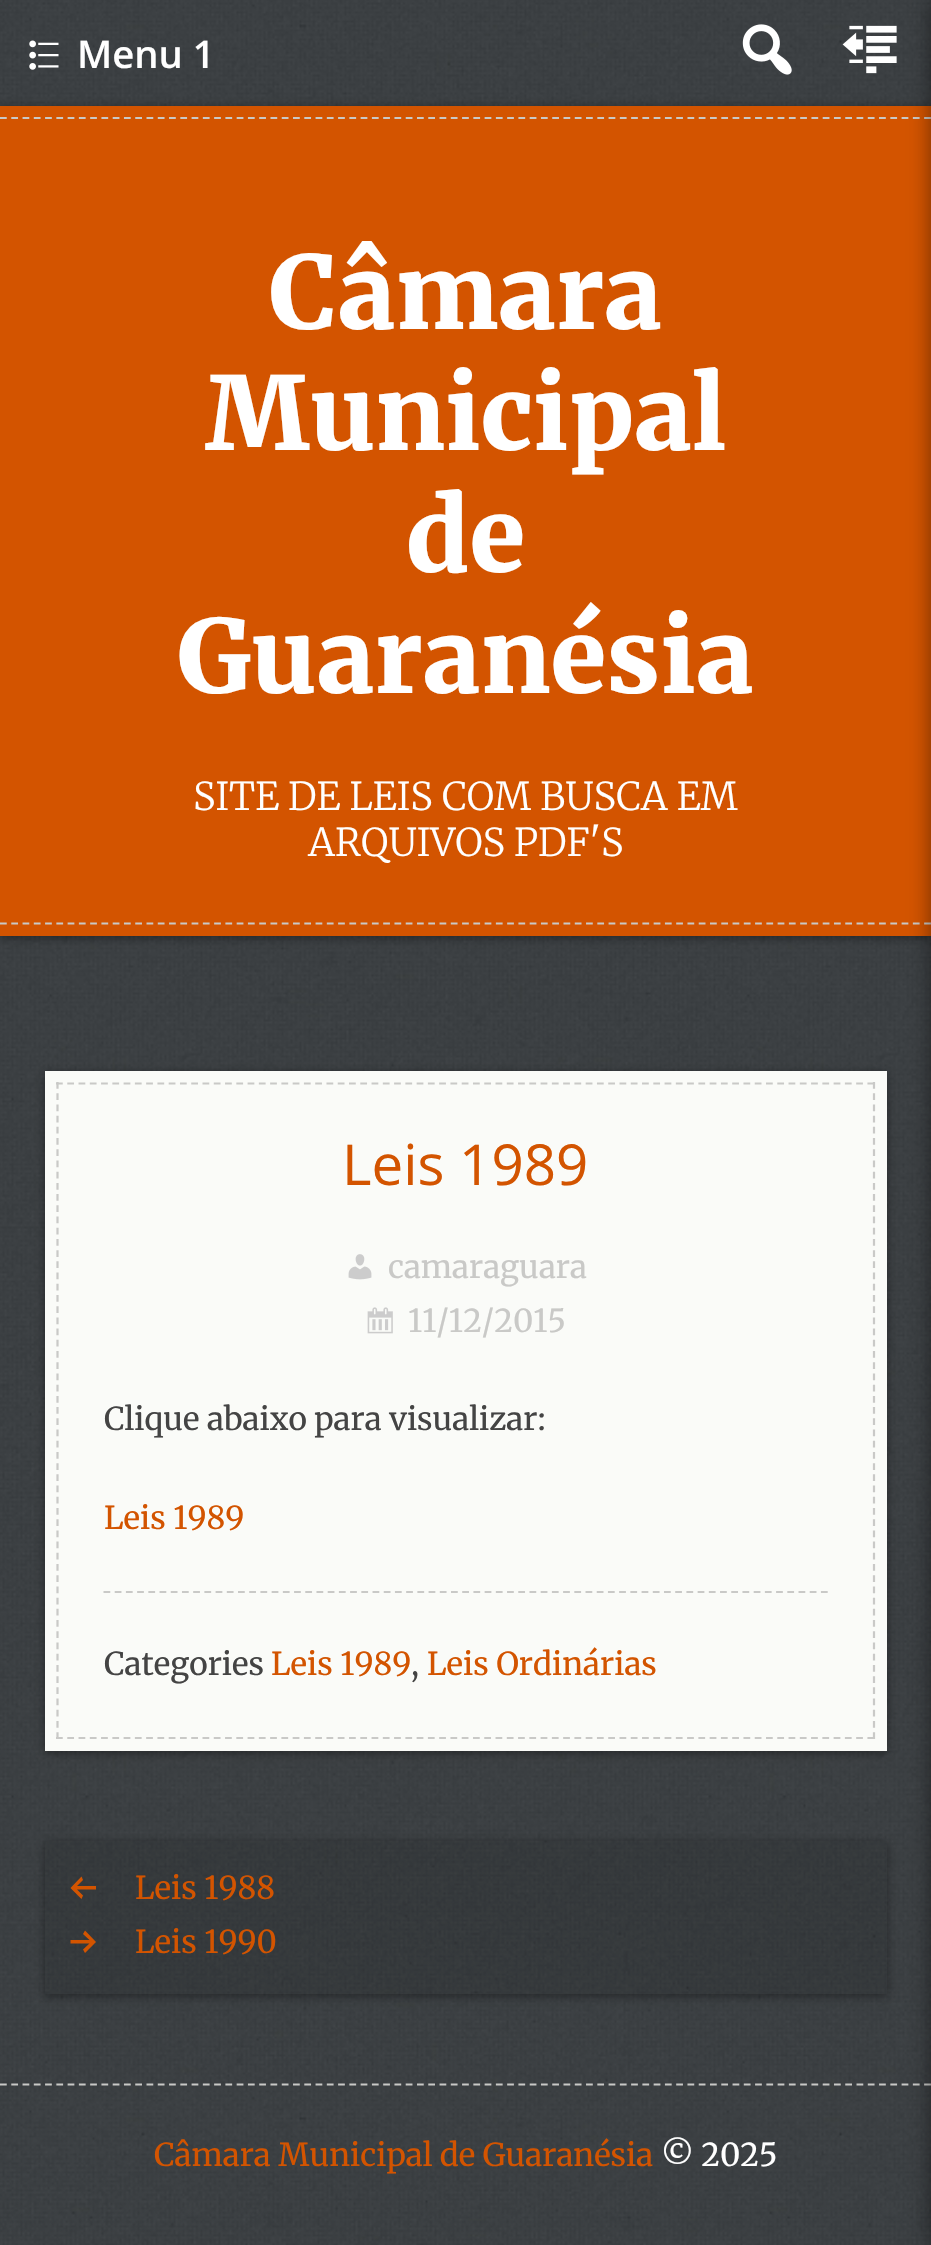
#include "include/core/SkBlurTypes.h"
#include "include/core/SkCanvas.h"
#include "include/core/SkData.h"
#include "include/core/SkFont.h"
#include "include/core/SkFontMgr.h"
#include "include/core/SkImage.h"
#include "include/core/SkMaskFilter.h"
#include "include/core/SkPaint.h"
#include "include/core/SkPathBuilder.h"
#include "include/core/SkTextBlob.h"
#include "include/effects/SkDashPathEffect.h"
#include "include/effects/SkGradientShader.h"
#include "include/utils/SkParsePath.h"

extern sk_sp<SkFontMgr> fontMgr;

void draw(SkCanvas* canvas) {
  SkPaint p;
  p.setAntiAlias(true);
  canvas->clear(SK_ColorWHITE);
  canvas->drawImageRect(SkImages::DeferredFromEncodedData(SkData::MakeFromFileName("images/1.png")), SkRect::MakeLTRB(0, 0, 931, 2245), SkSamplingOptions());
  canvas->drawImageRect(SkImages::DeferredFromEncodedData(SkData::MakeFromFileName("images/2.png")), SkRect::MakeLTRB(29, 40, 59, 70), SkSamplingOptions());
  canvas->drawImageRect(SkImages::DeferredFromEncodedData(SkData::MakeFromFileName("images/3.png")), SkRect::MakeLTRB(742, 24, 792, 75), SkSamplingOptions());
  canvas->drawImageRect(SkImages::DeferredFromEncodedData(SkData::MakeFromFileName("images/4.png")), SkRect::MakeLTRB(842, 25, 897, 74), SkSamplingOptions());
  p.setColor(SkColorSetARGB(102, 0, 0, 0));
  p.setMaskFilter(SkMaskFilter::MakeBlur(kNormal_SkBlurStyle, 4.5f));
  canvas->drawRect(SkRect::MakeLTRB(0, 108, 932, 938), p);
  p.setMaskFilter(nullptr);
  p.setColor(SkColorSetRGB(211, 84, 0));
  canvas->drawRect(SkRect::MakeLTRB(0, 106, 931, 936), p);
  p.setStyle(SkPaint::kStroke_Style);
  p.setStrokeWidth(2.2f);
  p.setColor(SkColorSetRGB(201, 201, 199));
  p.setPathEffect(SkDashPathEffect::Make({{6.75f, 4.52f}}, 0));
  canvas->drawPath(SkPathBuilder().moveTo(0, 118).lineTo(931.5f, 118).detach(), p);
  p.setPathEffect(nullptr);
  p.setPathEffect(SkDashPathEffect::Make({{6.75f, 4.52f}}, 0));
  canvas->drawPath(SkPathBuilder().moveTo(0, 923.5f).lineTo(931.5f, 923.5f).detach(), p);
  p.setPathEffect(nullptr);
  p.setStyle(SkPaint::kFill_Style);
  p.setColor(SkColorSetARGB(102, 0, 0, 0));
  p.setMaskFilter(SkMaskFilter::MakeBlur(kNormal_SkBlurStyle, 4.5f));
  canvas->drawRect(SkRect::MakeLTRB(45, 1073, 887, 1753), p);
  p.setMaskFilter(nullptr);
  p.setColor(SkColorSetRGB(250, 251, 248));
  canvas->drawRect(SkRect::MakeLTRB(45, 1071, 887, 1751), p);
  p.setStyle(SkPaint::kStroke_Style);
  p.setColor(SkColorSetRGB(201, 201, 199));
  p.setPathEffect(SkDashPathEffect::Make({{6.75f, 4.52f}}, 0));
  canvas->drawPath(SkPathBuilder().moveTo(56, 1083.5f).lineTo(875, 1083.5f).detach(), p);
  p.setPathEffect(nullptr);
  p.setPathEffect(SkDashPathEffect::Make({{6.75f, 4.46f}}, 0));
  canvas->drawPath(SkPathBuilder().moveTo(874, 1082).lineTo(874, 1739).detach(), p);
  p.setPathEffect(nullptr);
  p.setPathEffect(SkDashPathEffect::Make({{6.75f, 4.52f}}, 0));
  canvas->drawPath(SkPathBuilder().moveTo(56, 1738).lineTo(875, 1738).detach(), p);
  p.setPathEffect(nullptr);
  p.setPathEffect(SkDashPathEffect::Make({{6.75f, 4.46f}}, 0));
  canvas->drawPath(SkPathBuilder().moveTo(57.5f, 1082).lineTo(57.5f, 1739).detach(), p);
  p.setPathEffect(nullptr);
  canvas->drawImageRect(SkImages::DeferredFromEncodedData(SkData::MakeFromFileName("images/5.png")), SkRect::MakeLTRB(348, 1254, 372, 1280), SkSamplingOptions());
  canvas->drawImageRect(SkImages::DeferredFromEncodedData(SkData::MakeFromFileName("images/6.png")), SkRect::MakeLTRB(367, 1307, 393, 1334), SkSamplingOptions());
  p.setPathEffect(SkDashPathEffect::Make({{6.75f, 4.46f}}, 0));
  canvas->drawPath(SkPathBuilder().moveTo(103.5f, 1592).lineTo(828, 1592).detach(), p);
  p.setPathEffect(nullptr);
  canvas->save();
  canvas->clipPath(SkPathBuilder(SkPathFillType::kEvenOdd).moveTo(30, 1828).lineTo(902, 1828).lineTo(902, 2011).lineTo(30, 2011).close().moveTo(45, 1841).lineTo(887, 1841).lineTo(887, 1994).lineTo(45, 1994).close().detach(), true);
  p.setStyle(SkPaint::kFill_Style);
  p.setColor(SkColorSetARGB(102, 0, 0, 0));
  p.setMaskFilter(SkMaskFilter::MakeBlur(kNormal_SkBlurStyle, 4.5f));
  canvas->drawRect(SkRect::MakeLTRB(45, 1843, 887, 1996), p);
  p.setMaskFilter(nullptr);
  canvas->restore();
  p.setColor(SkColorSetARGB(26, 0, 0, 0));
  canvas->drawRect(SkRect::MakeLTRB(45, 1841, 887, 1994), p);
  p.setColor(SkColorSetRGB(211, 84, 0));
  canvas->drawPath(SkPathBuilder().moveTo(96, 1886).lineTo(96, 1889.5f).lineTo(77, 1889.5f).lineTo(83, 1895.5f).lineTo(81.5f, 1899).lineTo(70.5f, 1888).lineTo(81.5f, 1876.5f).lineTo(83, 1880).lineTo(77, 1886).close().detach(), p);
  canvas->drawPath(SkPathBuilder().moveTo(70.5f, 1943.5f).lineTo(70.5f, 1940).lineTo(89.5f, 1940).lineTo(83, 1934).lineTo(85, 1930.5f).lineTo(96, 1942).lineTo(85, 1953).lineTo(83, 1949.5f).lineTo(89.5f, 1943.5f).close().detach(), p);
  p.setStyle(SkPaint::kStroke_Style);
  p.setColor(SkColorSetRGB(201, 201, 199));
  p.setPathEffect(SkDashPathEffect::Make({{6.75f, 4.52f}}, 0));
  canvas->drawPath(SkPathBuilder().moveTo(0, 2084.5f).lineTo(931.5f, 2084.5f).detach(), p);
  p.setPathEffect(nullptr);
  p.setStyle(SkPaint::kFill_Style);
  p.setColor(SkColorSetARGB(128, 0, 0, 0));
  p.setMaskFilter(SkMaskFilter::MakeBlur(kNormal_SkBlurStyle, 11));
  canvas->drawRect(SkRect::MakeLTRB(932, 0, 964, 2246), p);
  p.setMaskFilter(nullptr);
  SkFont font1(fontMgr->matchFamilyStyle("Open Sans", SkFontStyle(600, SkFontStyle::kNormal_Width, SkFontStyle::kUpright_Slant)), 38.25f);
  font1.setSubpixel(true);
  p.setColor(SK_ColorWHITE);
  canvas->drawString("Menu 1", 77, 68, font1, p);
  SkFont font2(fontMgr->matchFamilyStyle("Merriweather", SkFontStyle(900, SkFontStyle::kNormal_Width, SkFontStyle::kUpright_Slant)), 101.25f);
  font2.setSubpixel(true);
  canvas->drawString("Câmara", 270, 329, font2, p);
  canvas->drawString("Municipal", 205, 450, font2, p);
  canvas->drawString("de", 406, 572, font2, p);
  canvas->drawString("Guaranésia", 177, 693, font2, p);
  SkFont font3(fontMgr->matchFamilyStyle("Merriweather", SkFontStyle(300, SkFontStyle::kNormal_Width, SkFontStyle::kUpright_Slant)), 38.25f);
  font3.setSubpixel(true);
  canvas->drawString("SITE DE LEIS COM BUSCA EM", 193, 810, font3, p);
  canvas->drawString("ARQUIVOS PDF'S", 308, 856, font3, p);
  SkFont font4(fontMgr->matchFamilyStyle("Open Sans", SkFontStyle::Normal()), 56.5f);
  font4.setSubpixel(true);
  p.setColor(SkColorSetRGB(211, 84, 0));
  canvas->drawString("Leis 1989", 342, 1185, font4, p);
  SkFont font5(fontMgr->matchFamilyStyle("Merriweather", SkFontStyle::Normal()), 31.5f);
  font5.setSubpixel(true);
  p.setColor(SkColorSetRGB(201, 201, 199));
  canvas->drawString("camaraguara", 388, 1278, font5, p);
  canvas->drawString("11/12/2015", 408, 1332, font5, p);
  p.setColor(SkColorSetRGB(68, 68, 68));
  canvas->drawString("Clique abaixo para visualizar:", 104, 1430, font5, p);
  p.setColor(SkColorSetRGB(211, 84, 0));
  canvas->drawString("Leis 1989", 104, 1529, font5, p);
  p.setColor(SkColorSetRGB(68, 68, 68));
  canvas->drawString("Categories", 104, 1675, font5, p);
  p.setColor(SkColorSetRGB(211, 84, 0));
  canvas->drawString("Leis 1989", 271, 1675, font5, p);
  p.setColor(SkColorSetRGB(68, 68, 68));
  canvas->drawString(",", 411, 1675, font5, p);
  p.setColor(SkColorSetRGB(211, 84, 0));
  canvas->drawString("Leis Ordinárias", 427, 1675, font5, p);
  canvas->drawString("Leis 1988", 135, 1899, font5, p);
  canvas->drawString("Leis 1990", 135, 1953, font5, p);
  canvas->drawString("Câmara Municipal de Guaranésia", 154, 2166, font5, p);
  p.setColor(SK_ColorWHITE);
  canvas->drawString("© 2025", 661, 2166, font5, p);
}
